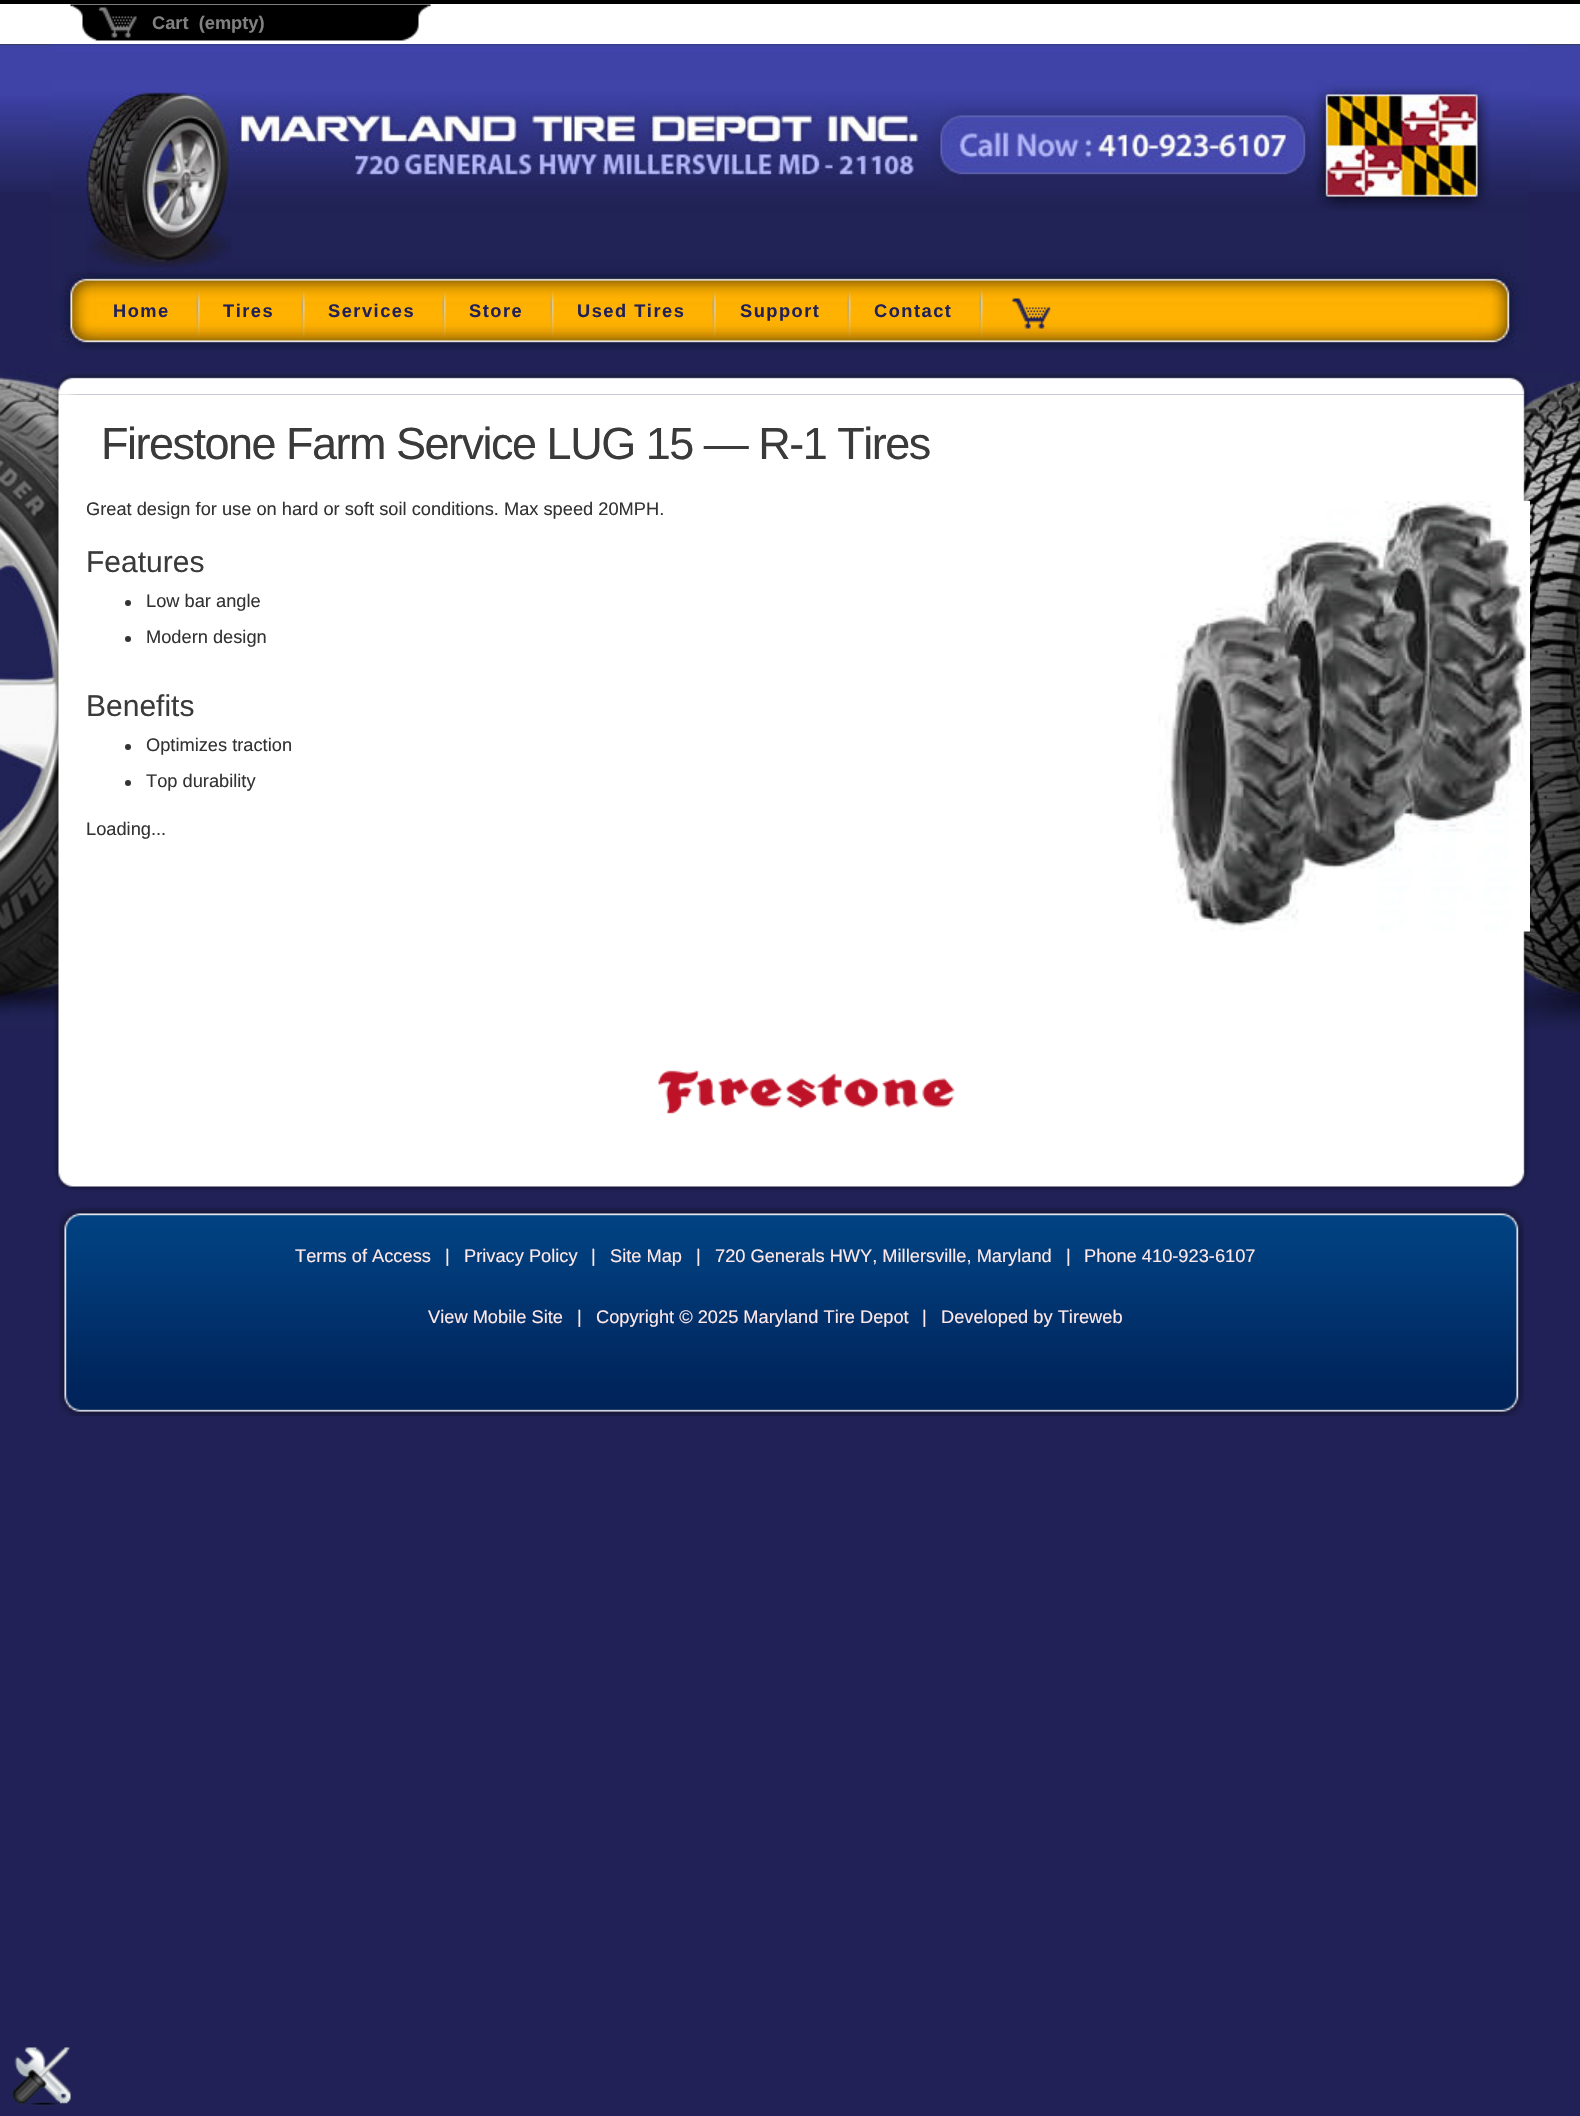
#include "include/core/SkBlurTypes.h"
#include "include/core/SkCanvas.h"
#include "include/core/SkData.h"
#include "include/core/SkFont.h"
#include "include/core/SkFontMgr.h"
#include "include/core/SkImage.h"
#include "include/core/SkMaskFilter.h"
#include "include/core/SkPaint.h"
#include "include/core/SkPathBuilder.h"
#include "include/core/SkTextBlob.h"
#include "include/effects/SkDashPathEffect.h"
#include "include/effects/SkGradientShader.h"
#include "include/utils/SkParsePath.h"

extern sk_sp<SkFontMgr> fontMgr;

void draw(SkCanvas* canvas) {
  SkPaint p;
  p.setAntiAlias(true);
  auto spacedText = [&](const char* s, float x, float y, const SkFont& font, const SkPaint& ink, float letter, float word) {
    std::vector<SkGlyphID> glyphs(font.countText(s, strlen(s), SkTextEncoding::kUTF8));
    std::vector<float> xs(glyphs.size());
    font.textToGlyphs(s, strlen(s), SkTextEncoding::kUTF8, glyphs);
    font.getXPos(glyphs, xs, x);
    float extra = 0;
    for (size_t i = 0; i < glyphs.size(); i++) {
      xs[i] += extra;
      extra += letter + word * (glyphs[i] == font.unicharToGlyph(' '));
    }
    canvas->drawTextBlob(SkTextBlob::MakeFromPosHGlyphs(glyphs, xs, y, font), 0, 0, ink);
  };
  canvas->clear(SkColorSetRGB(33, 33, 87));
  canvas->drawImageRect(SkImages::DeferredFromEncodedData(SkData::MakeFromFileName("images/1.png")), SkRect::MakeLTRB(0, 44, 1580, 192), SkSamplingOptions());
  p.setColor(SK_ColorBLACK);
  canvas->drawRect(SkRect::MakeLTRB(0, 0, 1580, 4), p);
  p.setColor(SK_ColorWHITE);
  canvas->drawRect(SkRect::MakeLTRB(0, 4, 1580, 44), p);
  canvas->drawImageRect(SkImages::DeferredFromEncodedData(SkData::MakeFromFileName("images/2.png")), SkRect::MakeLTRB(70, 4, 431, 41), SkSamplingOptions());
  canvas->drawImageRect(SkImages::DeferredFromEncodedData(SkData::MakeFromFileName("images/3.png")), SkRect::MakeLTRB(51, 44, 1530, 351), SkSamplingOptions());
  canvas->drawImageRect(SkImages::DeferredFromEncodedData(SkData::MakeFromFileName("images/4.png")), SkRect::MakeLTRB(196, 291, 200, 338), SkSamplingOptions());
  canvas->drawImageRect(SkImages::DeferredFromEncodedData(SkData::MakeFromFileName("images/4.png")), SkRect::MakeLTRB(301, 291, 305, 338), SkSamplingOptions());
  canvas->drawImageRect(SkImages::DeferredFromEncodedData(SkData::MakeFromFileName("images/4.png")), SkRect::MakeLTRB(442, 291, 446, 338), SkSamplingOptions());
  canvas->drawImageRect(SkImages::DeferredFromEncodedData(SkData::MakeFromFileName("images/4.png")), SkRect::MakeLTRB(550, 291, 554, 338), SkSamplingOptions());
  canvas->drawImageRect(SkImages::DeferredFromEncodedData(SkData::MakeFromFileName("images/5.png")), SkRect::MakeLTRB(712, 291, 716, 338), SkSamplingOptions());
  canvas->drawImageRect(SkImages::DeferredFromEncodedData(SkData::MakeFromFileName("images/4.png")), SkRect::MakeLTRB(847, 291, 851, 338), SkSamplingOptions());
  canvas->drawImageRect(SkImages::DeferredFromEncodedData(SkData::MakeFromFileName("images/6.png")), SkRect::MakeLTRB(979, 289, 1051, 337), SkSamplingOptions());
  canvas->drawImageRect(SkImages::DeferredFromEncodedData(SkData::MakeFromFileName("images/7.png")), SkRect::MakeLTRB(0, 372, 1580, 1030), SkSamplingOptions());
  canvas->drawImageRect(SkImages::DeferredFromEncodedData(SkData::MakeFromFileName("images/8.png")), SkRect::MakeLTRB(53, 373, 1529, 395), SkSamplingOptions());
  canvas->drawImageRect(SkImages::DeferredFromEncodedData(SkData::MakeFromFileName("images/9.png")), SkRect::MakeLTRB(53, 394, 1530, 1170), SkSamplingOptions());
  p.setColor(SkColorSetRGB(51, 51, 51));
  canvas->drawCircle(128, 603, 3, p);
  canvas->drawCircle(128, 639, 3, p);
  canvas->drawCircle(128, 747, 3, p);
  canvas->drawCircle(128, 783, 3, p);
  canvas->drawImageRect(SkImages::DeferredFromEncodedData(SkData::MakeFromFileName("images/10.png")), SkRect::MakeLTRB(1158, 501, 1530, 932), SkSamplingOptions());
  canvas->drawImageRect(SkImages::DeferredFromEncodedData(SkData::MakeFromFileName("images/11.png")), SkRect::MakeLTRB(658, 1070, 955, 1114), SkSamplingOptions());
  canvas->drawImageRect(SkImages::DeferredFromEncodedData(SkData::MakeFromFileName("images/12.png")), SkRect::MakeLTRB(54, 1170, 1529, 1191), SkSamplingOptions());
  canvas->drawImageRect(SkImages::DeferredFromEncodedData(SkData::MakeFromFileName("images/13.png")), SkRect::MakeLTRB(58, 1207, 1524, 1416), SkSamplingOptions());
  canvas->drawImageRect(SkImages::DeferredFromEncodedData(SkData::MakeFromFileName("images/14.png")), SkRect::MakeLTRB(11, 2047, 71, 2106), SkSamplingOptions());
  SkFont font1(fontMgr->matchFamilyStyle("Liberation Sans", SkFontStyle::Bold()), 18.25f);
  font1.setSubpixel(true);
  p.setColor(SkColorSetRGB(128, 128, 128));
  canvas->drawString("Cart  (empty)", 152, 29, font1, p);
  p.setColor(SkColorSetRGB(33, 33, 87));
  spacedText("Home", 113, 317, font1, p, 1.5f, 0);
  spacedText("Tires", 223, 317, font1, p, 1.5f, 0);
  spacedText("Services", 328, 317, font1, p, 1.5f, 0);
  spacedText("Store", 469, 317, font1, p, 1.5f, 0);
  spacedText("Used Tires", 577, 317, font1, p, 1.5f, 0);
  spacedText("Support", 740, 317, font1, p, 1.5f, 0);
  spacedText("Contact", 874, 317, font1, p, 1.5f, 0);
  SkFont font2(fontMgr->matchFamilyStyle("Liberation Sans", SkFontStyle::Normal()), 45);
  font2.setSubpixel(true);
  p.setColor(SkColorSetRGB(58, 58, 58));
  spacedText("Firestone Farm Service LUG 15 — R-1 Tires", 101, 459, font2, p, -1.5f, 0);
  SkFont font3(fontMgr->matchFamilyStyle("Liberation Sans", SkFontStyle::Normal()), 18.25f);
  font3.setSubpixel(true);
  p.setColor(SkColorSetRGB(51, 51, 51));
  canvas->drawString("Great design for use on hard or soft soil conditions. Max speed 20MPH.", 86, 515, font3, p);
  SkFont font4(fontMgr->matchFamilyStyle("Liberation Sans", SkFontStyle::Normal()), 30);
  font4.setSubpixel(true);
  p.setColor(SkColorSetRGB(58, 58, 58));
  canvas->drawString("Features", 86, 572, font4, p);
  p.setColor(SkColorSetRGB(51, 51, 51));
  canvas->drawString("Low bar angle", 146, 607, font3, p);
  canvas->drawString("Modern design", 146, 643, font3, p);
  p.setColor(SkColorSetRGB(58, 58, 58));
  canvas->drawString("Benefits", 86, 716, font4, p);
  p.setColor(SkColorSetRGB(51, 51, 51));
  canvas->drawString("Optimizes traction", 146, 751, font3, p);
  canvas->drawString("Top durability", 146, 787, font3, p);
  canvas->drawString("Loading...", 86, 835, font3, p);
  p.setColor(SkColorSetRGB(255, 232, 232));
  canvas->drawString("Terms of Access", 295, 1262, font3, p);
  canvas->drawString("|", 445, 1262, font3, p);
  canvas->drawString("Privacy Policy", 464, 1262, font3, p);
  canvas->drawString("|", 591, 1262, font3, p);
  canvas->drawString("Site Map", 610, 1262, font3, p);
  canvas->drawString("|", 696, 1262, font3, p);
  canvas->drawString("720 Generals HWY, Millersville, Maryland", 715, 1262, font3, p);
  canvas->drawString("|", 1066, 1262, font3, p);
  canvas->drawString("Phone 410-923-6107", 1084, 1262, font3, p);
  canvas->drawString("View Mobile Site", 428, 1323, font3, p);
  canvas->drawString("|", 577, 1323, font3, p);
  canvas->drawString("Copyright © 2025 Maryland Tire Depot", 596, 1323, font3, p);
  canvas->drawString("|", 922, 1323, font3, p);
  canvas->drawString("Developed by Tireweb", 941, 1323, font3, p);
}
